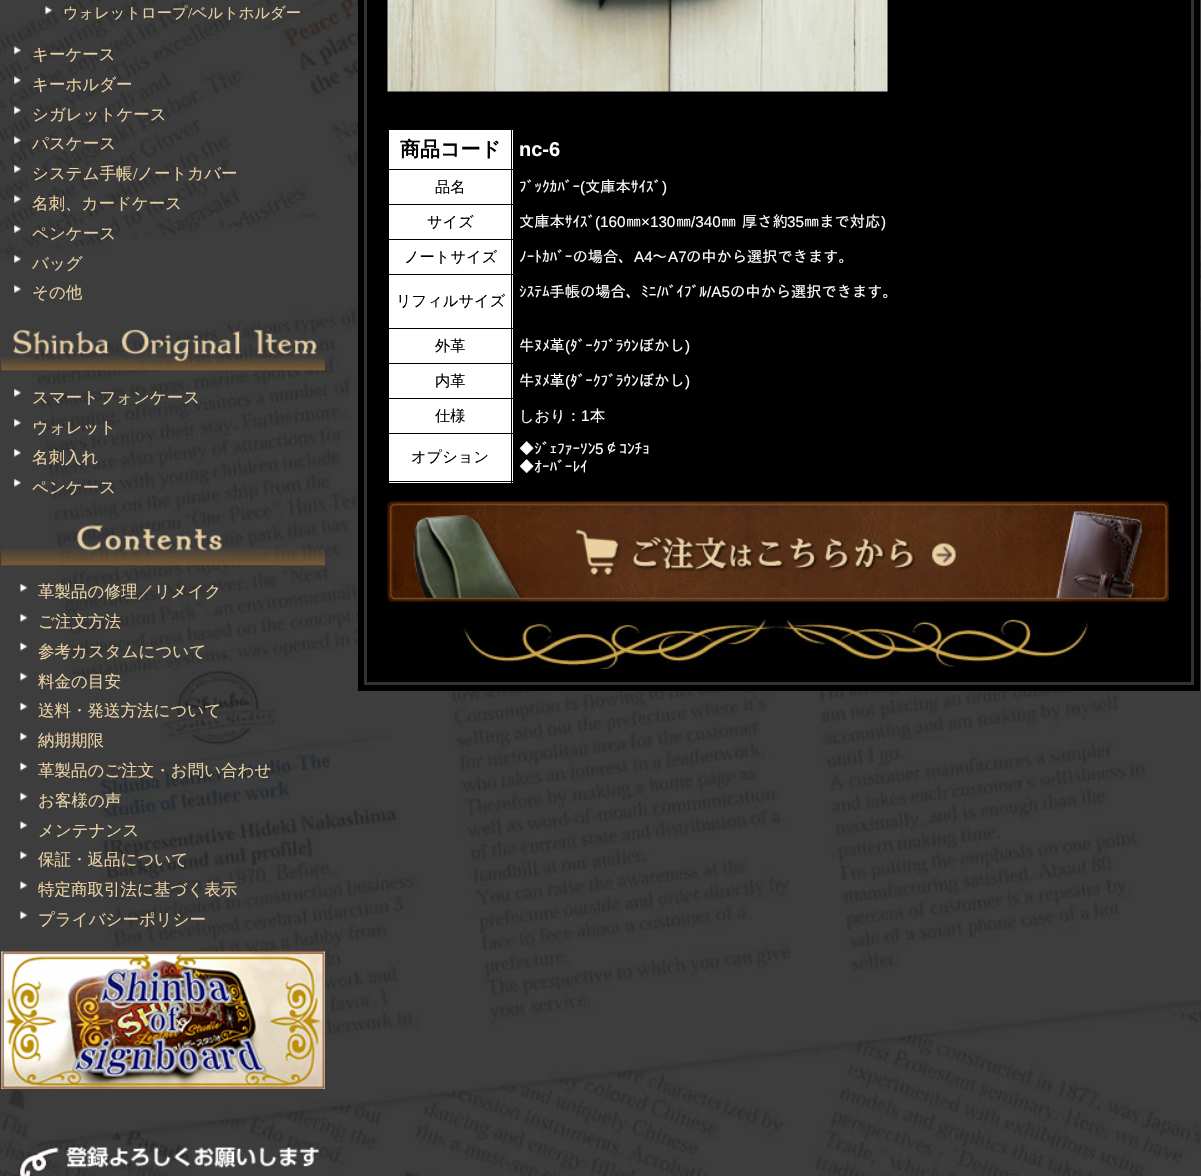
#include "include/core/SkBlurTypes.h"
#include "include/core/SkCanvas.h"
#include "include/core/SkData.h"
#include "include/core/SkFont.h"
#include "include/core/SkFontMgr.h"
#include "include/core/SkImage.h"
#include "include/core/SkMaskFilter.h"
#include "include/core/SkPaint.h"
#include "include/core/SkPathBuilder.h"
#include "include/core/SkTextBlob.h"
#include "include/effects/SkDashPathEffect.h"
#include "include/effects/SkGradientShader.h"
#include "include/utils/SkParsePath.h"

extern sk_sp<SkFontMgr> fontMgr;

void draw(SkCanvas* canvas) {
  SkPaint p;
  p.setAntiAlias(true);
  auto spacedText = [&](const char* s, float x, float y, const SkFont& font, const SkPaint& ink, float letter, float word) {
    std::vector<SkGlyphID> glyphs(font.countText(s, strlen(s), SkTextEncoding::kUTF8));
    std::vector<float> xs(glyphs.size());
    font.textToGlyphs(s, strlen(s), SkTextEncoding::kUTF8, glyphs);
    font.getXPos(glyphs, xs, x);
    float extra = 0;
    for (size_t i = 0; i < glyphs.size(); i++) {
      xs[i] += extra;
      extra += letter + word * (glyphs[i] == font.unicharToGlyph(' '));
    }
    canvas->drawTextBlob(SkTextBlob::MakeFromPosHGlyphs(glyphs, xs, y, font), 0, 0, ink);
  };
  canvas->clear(SK_ColorWHITE);
  canvas->drawImageRect(SkImages::DeferredFromEncodedData(SkData::MakeFromFileName("images/1.png")), SkRect::MakeLTRB(0, 0, 1201, 1176), SkSamplingOptions());
  canvas->drawImageRect(SkImages::DeferredFromEncodedData(SkData::MakeFromFileName("images/2.png")), SkRect::MakeLTRB(45, 6, 53, 15), SkSamplingOptions());
  canvas->drawImageRect(SkImages::DeferredFromEncodedData(SkData::MakeFromFileName("images/3.png")), SkRect::MakeLTRB(14, 46, 21, 55), SkSamplingOptions());
  canvas->drawImageRect(SkImages::DeferredFromEncodedData(SkData::MakeFromFileName("images/4.png")), SkRect::MakeLTRB(14, 76, 21, 85), SkSamplingOptions());
  canvas->drawImageRect(SkImages::DeferredFromEncodedData(SkData::MakeFromFileName("images/5.png")), SkRect::MakeLTRB(14, 106, 21, 115), SkSamplingOptions());
  canvas->drawImageRect(SkImages::DeferredFromEncodedData(SkData::MakeFromFileName("images/6.png")), SkRect::MakeLTRB(14, 136, 21, 145), SkSamplingOptions());
  canvas->drawImageRect(SkImages::DeferredFromEncodedData(SkData::MakeFromFileName("images/7.png")), SkRect::MakeLTRB(14, 165, 21, 173), SkSamplingOptions());
  canvas->drawImageRect(SkImages::DeferredFromEncodedData(SkData::MakeFromFileName("images/8.png")), SkRect::MakeLTRB(14, 195, 21, 203), SkSamplingOptions());
  canvas->drawImageRect(SkImages::DeferredFromEncodedData(SkData::MakeFromFileName("images/9.png")), SkRect::MakeLTRB(14, 225, 21, 233), SkSamplingOptions());
  canvas->drawImageRect(SkImages::DeferredFromEncodedData(SkData::MakeFromFileName("images/10.png")), SkRect::MakeLTRB(14, 255, 21, 263), SkSamplingOptions());
  canvas->drawImageRect(SkImages::DeferredFromEncodedData(SkData::MakeFromFileName("images/11.png")), SkRect::MakeLTRB(14, 285, 21, 293), SkSamplingOptions());
  canvas->drawImageRect(SkImages::DeferredFromEncodedData(SkData::MakeFromFileName("images/12.png")), SkRect::MakeLTRB(1, 329, 325, 371), SkSamplingOptions());
  canvas->drawImageRect(SkImages::DeferredFromEncodedData(SkData::MakeFromFileName("images/13.png")), SkRect::MakeLTRB(14, 388, 21, 397), SkSamplingOptions());
  canvas->drawImageRect(SkImages::DeferredFromEncodedData(SkData::MakeFromFileName("images/14.png")), SkRect::MakeLTRB(14, 418, 21, 427), SkSamplingOptions());
  canvas->drawImageRect(SkImages::DeferredFromEncodedData(SkData::MakeFromFileName("images/13.png")), SkRect::MakeLTRB(14, 448, 21, 457), SkSamplingOptions());
  canvas->drawImageRect(SkImages::DeferredFromEncodedData(SkData::MakeFromFileName("images/13.png")), SkRect::MakeLTRB(14, 478, 21, 487), SkSamplingOptions());
  canvas->drawImageRect(SkImages::DeferredFromEncodedData(SkData::MakeFromFileName("images/15.png")), SkRect::MakeLTRB(1, 525, 325, 566), SkSamplingOptions());
  canvas->drawImageRect(SkImages::DeferredFromEncodedData(SkData::MakeFromFileName("images/16.png")), SkRect::MakeLTRB(20, 583, 28, 592), SkSamplingOptions());
  canvas->drawImageRect(SkImages::DeferredFromEncodedData(SkData::MakeFromFileName("images/16.png")), SkRect::MakeLTRB(20, 613, 28, 622), SkSamplingOptions());
  canvas->drawImageRect(SkImages::DeferredFromEncodedData(SkData::MakeFromFileName("images/17.png")), SkRect::MakeLTRB(20, 642, 28, 651), SkSamplingOptions());
  canvas->drawImageRect(SkImages::DeferredFromEncodedData(SkData::MakeFromFileName("images/17.png")), SkRect::MakeLTRB(20, 672, 28, 681), SkSamplingOptions());
  canvas->drawImageRect(SkImages::DeferredFromEncodedData(SkData::MakeFromFileName("images/17.png")), SkRect::MakeLTRB(20, 702, 28, 711), SkSamplingOptions());
  canvas->drawImageRect(SkImages::DeferredFromEncodedData(SkData::MakeFromFileName("images/17.png")), SkRect::MakeLTRB(20, 732, 28, 741), SkSamplingOptions());
  canvas->drawImageRect(SkImages::DeferredFromEncodedData(SkData::MakeFromFileName("images/17.png")), SkRect::MakeLTRB(20, 762, 28, 771), SkSamplingOptions());
  canvas->drawImageRect(SkImages::DeferredFromEncodedData(SkData::MakeFromFileName("images/17.png")), SkRect::MakeLTRB(20, 792, 28, 801), SkSamplingOptions());
  canvas->drawImageRect(SkImages::DeferredFromEncodedData(SkData::MakeFromFileName("images/18.png")), SkRect::MakeLTRB(20, 821, 28, 830), SkSamplingOptions());
  canvas->drawImageRect(SkImages::DeferredFromEncodedData(SkData::MakeFromFileName("images/18.png")), SkRect::MakeLTRB(20, 851, 28, 860), SkSamplingOptions());
  canvas->drawImageRect(SkImages::DeferredFromEncodedData(SkData::MakeFromFileName("images/18.png")), SkRect::MakeLTRB(20, 881, 28, 890), SkSamplingOptions());
  canvas->drawImageRect(SkImages::DeferredFromEncodedData(SkData::MakeFromFileName("images/18.png")), SkRect::MakeLTRB(20, 911, 28, 920), SkSamplingOptions());
  canvas->drawImageRect(SkImages::DeferredFromEncodedData(SkData::MakeFromFileName("images/19.png")), SkRect::MakeLTRB(1, 951, 325, 1089), SkSamplingOptions());
  canvas->drawImageRect(SkImages::DeferredFromEncodedData(SkData::MakeFromFileName("images/20.png")), SkRect::MakeLTRB(14, 1146, 319, 1176), SkSamplingOptions());
  p.setColor(SK_ColorBLACK);
  canvas->drawRect(SkRect::MakeLTRB(358, 0, 1200, 691), p);
  p.setStyle(SkPaint::kStroke_Style);
  p.setStrokeWidth(3);
  p.setColor(SkColorSetRGB(51, 51, 51));
  canvas->drawRect(SkRect::MakeLTRB(365.5f, -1.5f, 1192.5f, 683.5f), p);
  canvas->drawImageRect(SkImages::DeferredFromEncodedData(SkData::MakeFromFileName("images/21.png")), SkRect::MakeLTRB(459, 619, 1089, 669), SkSamplingOptions());
  canvas->drawImageRect(SkImages::DeferredFromEncodedData(SkData::MakeFromFileName("images/22.png")), SkRect::MakeLTRB(387, 0, 888, 92), SkSamplingOptions());
  p.setStyle(SkPaint::kFill_Style);
  p.setColor(SK_ColorWHITE);
  canvas->drawRect(SkRect::MakeLTRB(389, 130, 513, 169), p);
  canvas->drawRect(SkRect::MakeLTRB(389, 170, 513, 204), p);
  canvas->drawRect(SkRect::MakeLTRB(389, 205, 513, 239), p);
  canvas->drawRect(SkRect::MakeLTRB(389, 240, 513, 274), p);
  canvas->drawRect(SkRect::MakeLTRB(389, 275, 513, 328), p);
  canvas->drawRect(SkRect::MakeLTRB(389, 329, 513, 363), p);
  canvas->drawRect(SkRect::MakeLTRB(389, 364, 513, 398), p);
  canvas->drawRect(SkRect::MakeLTRB(389, 399, 513, 433), p);
  canvas->drawRect(SkRect::MakeLTRB(389, 434, 513, 483), p);
  p.setColor(SK_ColorBLACK);
  canvas->drawRect(SkRect::MakeLTRB(511, 481, 513, 482), p);
  canvas->drawRect(SkRect::MakeLTRB(511, 129, 512, 483), p);
  canvas->drawRect(SkRect::MakeLTRB(388, 481, 513, 482), p);
  canvas->drawImageRect(SkImages::DeferredFromEncodedData(SkData::MakeFromFileName("images/23.png")), SkRect::MakeLTRB(387, 501, 1169, 602), SkSamplingOptions());
  SkFont font1(fontMgr->matchFamilyStyle("WenQuanYi Zen Hei", SkFontStyle(500, SkFontStyle::kNormal_Width, SkFontStyle::kUpright_Slant)), 15.25f);
  font1.setSubpixel(true);
  p.setColor(SkColorSetRGB(233, 208, 164));
  canvas->drawString("ウォレットロープ", 63, 18, font1, p);
  SkFont font2(fontMgr->matchFamilyStyle("Liberation Serif", SkFontStyle::Normal()), 15.25f);
  font2.setSubpixel(true);
  canvas->drawString("/", 188, 18, font2, p);
  canvas->drawString("ベルトホルダー", 192, 18, font1, p);
  SkFont font3(fontMgr->matchFamilyStyle("WenQuanYi Zen Hei", SkFontStyle(500, SkFontStyle::kNormal_Width, SkFontStyle::kUpright_Slant)), 16.5f);
  font3.setSubpixel(true);
  canvas->drawString("キーケース", 32, 60, font3, p);
  canvas->drawString("キーホルダー", 32, 90, font3, p);
  canvas->drawString("シガレットケース", 32, 120, font3, p);
  canvas->drawString("パスケース", 32, 149, font3, p);
  canvas->drawString("システム手帳", 32, 179, font3, p);
  SkFont font4(fontMgr->matchFamilyStyle("Liberation Serif", SkFontStyle::Normal()), 16.5f);
  font4.setSubpixel(true);
  canvas->drawString("/", 133, 179, font4, p);
  canvas->drawString("ノートカバー", 137, 179, font3, p);
  canvas->drawString("名刺、カードケース", 32, 209, font3, p);
  canvas->drawString("ペンケース", 32, 239, font3, p);
  canvas->drawString("バッグ", 32, 269, font3, p);
  canvas->drawString("その他", 32, 298, font3, p);
  canvas->drawString("スマートフォンケース", 32, 403, font3, p);
  canvas->drawString("ウォレット", 32, 433, font3, p);
  canvas->drawString("名刺入れ", 32, 463, font3, p);
  canvas->drawString("ペンケース", 32, 493, font3, p);
  canvas->drawString("革製品の修理／リメイク", 38, 597, font3, p);
  canvas->drawString("ご注文方法", 38, 627, font3, p);
  canvas->drawString("参考カスタムについて", 38, 657, font3, p);
  canvas->drawString("料金の目安", 38, 687, font3, p);
  canvas->drawString("送料・発送方法について", 38, 716, font3, p);
  canvas->drawString("納期期限", 38, 746, font3, p);
  canvas->drawString("革製品のご注文・お問い合わせ", 38, 776, font3, p);
  canvas->drawString("お客様の声", 38, 806, font3, p);
  canvas->drawString("メンテナンス", 38, 836, font3, p);
  canvas->drawString("保証・返品について", 38, 865, font3, p);
  canvas->drawString("特定商取引法に基づく表示", 38, 895, font3, p);
  canvas->drawString("プライバシーポリシー", 38, 925, font3, p);
  SkFont font5(fontMgr->matchFamilyStyle("WenQuanYi Zen Hei", SkFontStyle::Bold()), 20);
  font5.setSubpixel(true);
  p.setColor(SK_ColorBLACK);
  canvas->drawString("商品コード", 400, 156, font5, p);
  SkFont font6(fontMgr->matchFamilyStyle("Liberation Sans", SkFontStyle::Bold()), 20);
  font6.setSubpixel(true);
  p.setColor(SK_ColorWHITE);
  canvas->drawString("nc-6", 519, 156, font6, p);
  p.setColor(SK_ColorBLACK);
  canvas->drawString("品名", 435, 192, font1, p);
  SkFont font7(fontMgr->matchFamilyStyle("IPAGothic", SkFontStyle::Normal()), 15.25f);
  font7.setSubpixel(true);
  p.setColor(SK_ColorWHITE);
  canvas->drawString("ﾌﾞｯｸｶﾊﾞｰ", 519, 192, font7, p);
  SkFont font8(fontMgr->matchFamilyStyle("Liberation Sans", SkFontStyle::Normal()), 15.25f);
  font8.setSubpixel(true);
  canvas->drawString("(", 580, 192, font8, p);
  canvas->drawString("文庫本ｻｲｽﾞ", 585, 192, font7, p);
  canvas->drawString(")", 662, 192, font8, p);
  p.setColor(SK_ColorBLACK);
  canvas->drawString("サイズ", 427, 227, font1, p);
  p.setColor(SK_ColorWHITE);
  canvas->drawString("文庫本ｻｲｽﾞ", 519, 227, font7, p);
  canvas->drawString("(160", 595, 227, font8, p);
  canvas->drawString("㎜", 626, 227, font7, p);
  canvas->drawString("×130", 641, 227, font8, p);
  canvas->drawString("㎜", 676, 227, font7, p);
  canvas->drawString("/340", 691, 227, font8, p);
  spacedText("㎜ 厚さ約", 721, 227, font7, p, 0, -2);
  canvas->drawString("35", 787, 227, font8, p);
  canvas->drawString("㎜まで対応", 804, 227, font7, p);
  canvas->drawString(")", 881, 227, font8, p);
  p.setColor(SK_ColorBLACK);
  canvas->drawString("ノートサイズ", 404, 262, font1, p);
  p.setColor(SK_ColorWHITE);
  canvas->drawString("ﾉｰﾄｶﾊﾞｰの場合、", 519, 262, font7, p);
  canvas->drawString("A4", 634, 262, font8, p);
  canvas->drawString("～", 652, 262, font7, p);
  canvas->drawString("A7", 668, 262, font8, p);
  canvas->drawString("の中から選択できます。", 686, 262, font7, p);
  canvas->drawString("ｼｽﾃﾑ手帳の場合、ﾐﾆ", 519, 297, font7, p);
  canvas->drawString("/", 657, 297, font8, p);
  canvas->drawString("ﾊﾞｲﾌﾞﾙ", 661, 297, font7, p);
  canvas->drawString("/A5", 707, 297, font8, p);
  canvas->drawString("の中から選択できます。", 730, 297, font7, p);
  p.setColor(SK_ColorBLACK);
  canvas->drawString("リフィルサイズ", 396, 306, font1, p);
  canvas->drawString("外革", 435, 351, font1, p);
  p.setColor(SK_ColorWHITE);
  canvas->drawString("牛ﾇﾒ革", 519, 351, font7, p);
  canvas->drawString("(", 565, 351, font8, p);
  canvas->drawString("ﾀﾞｰｸﾌﾞﾗｳﾝぼかし", 570, 351, font7, p);
  canvas->drawString(")", 685, 351, font8, p);
  p.setColor(SK_ColorBLACK);
  canvas->drawString("内革", 435, 386, font1, p);
  p.setColor(SK_ColorWHITE);
  canvas->drawString("牛ﾇﾒ革", 519, 386, font7, p);
  canvas->drawString("(", 565, 386, font8, p);
  canvas->drawString("ﾀﾞｰｸﾌﾞﾗｳﾝぼかし", 570, 386, font7, p);
  canvas->drawString(")", 685, 386, font8, p);
  p.setColor(SK_ColorBLACK);
  canvas->drawString("仕様", 435, 421, font1, p);
  p.setColor(SK_ColorWHITE);
  canvas->drawString("しおり：", 519, 421, font1, p);
  canvas->drawString("1", 581, 421, font8, p);
  canvas->drawString("本", 590, 421, font1, p);
  p.setColor(SK_ColorBLACK);
  canvas->drawString("オプション", 411, 462, font1, p);
  p.setColor(SK_ColorWHITE);
  canvas->drawString("◆ｼﾞｪﾌｧｰｿﾝ", 519, 454, font7, p);
  canvas->drawString("5", 595, 454, font8, p);
  canvas->drawString("￠ｺﾝﾁｮ", 604, 454, font7, p);
  canvas->drawString("◆ｵｰﾊﾞｰﾚｲ", 519, 472, font7, p);
}
